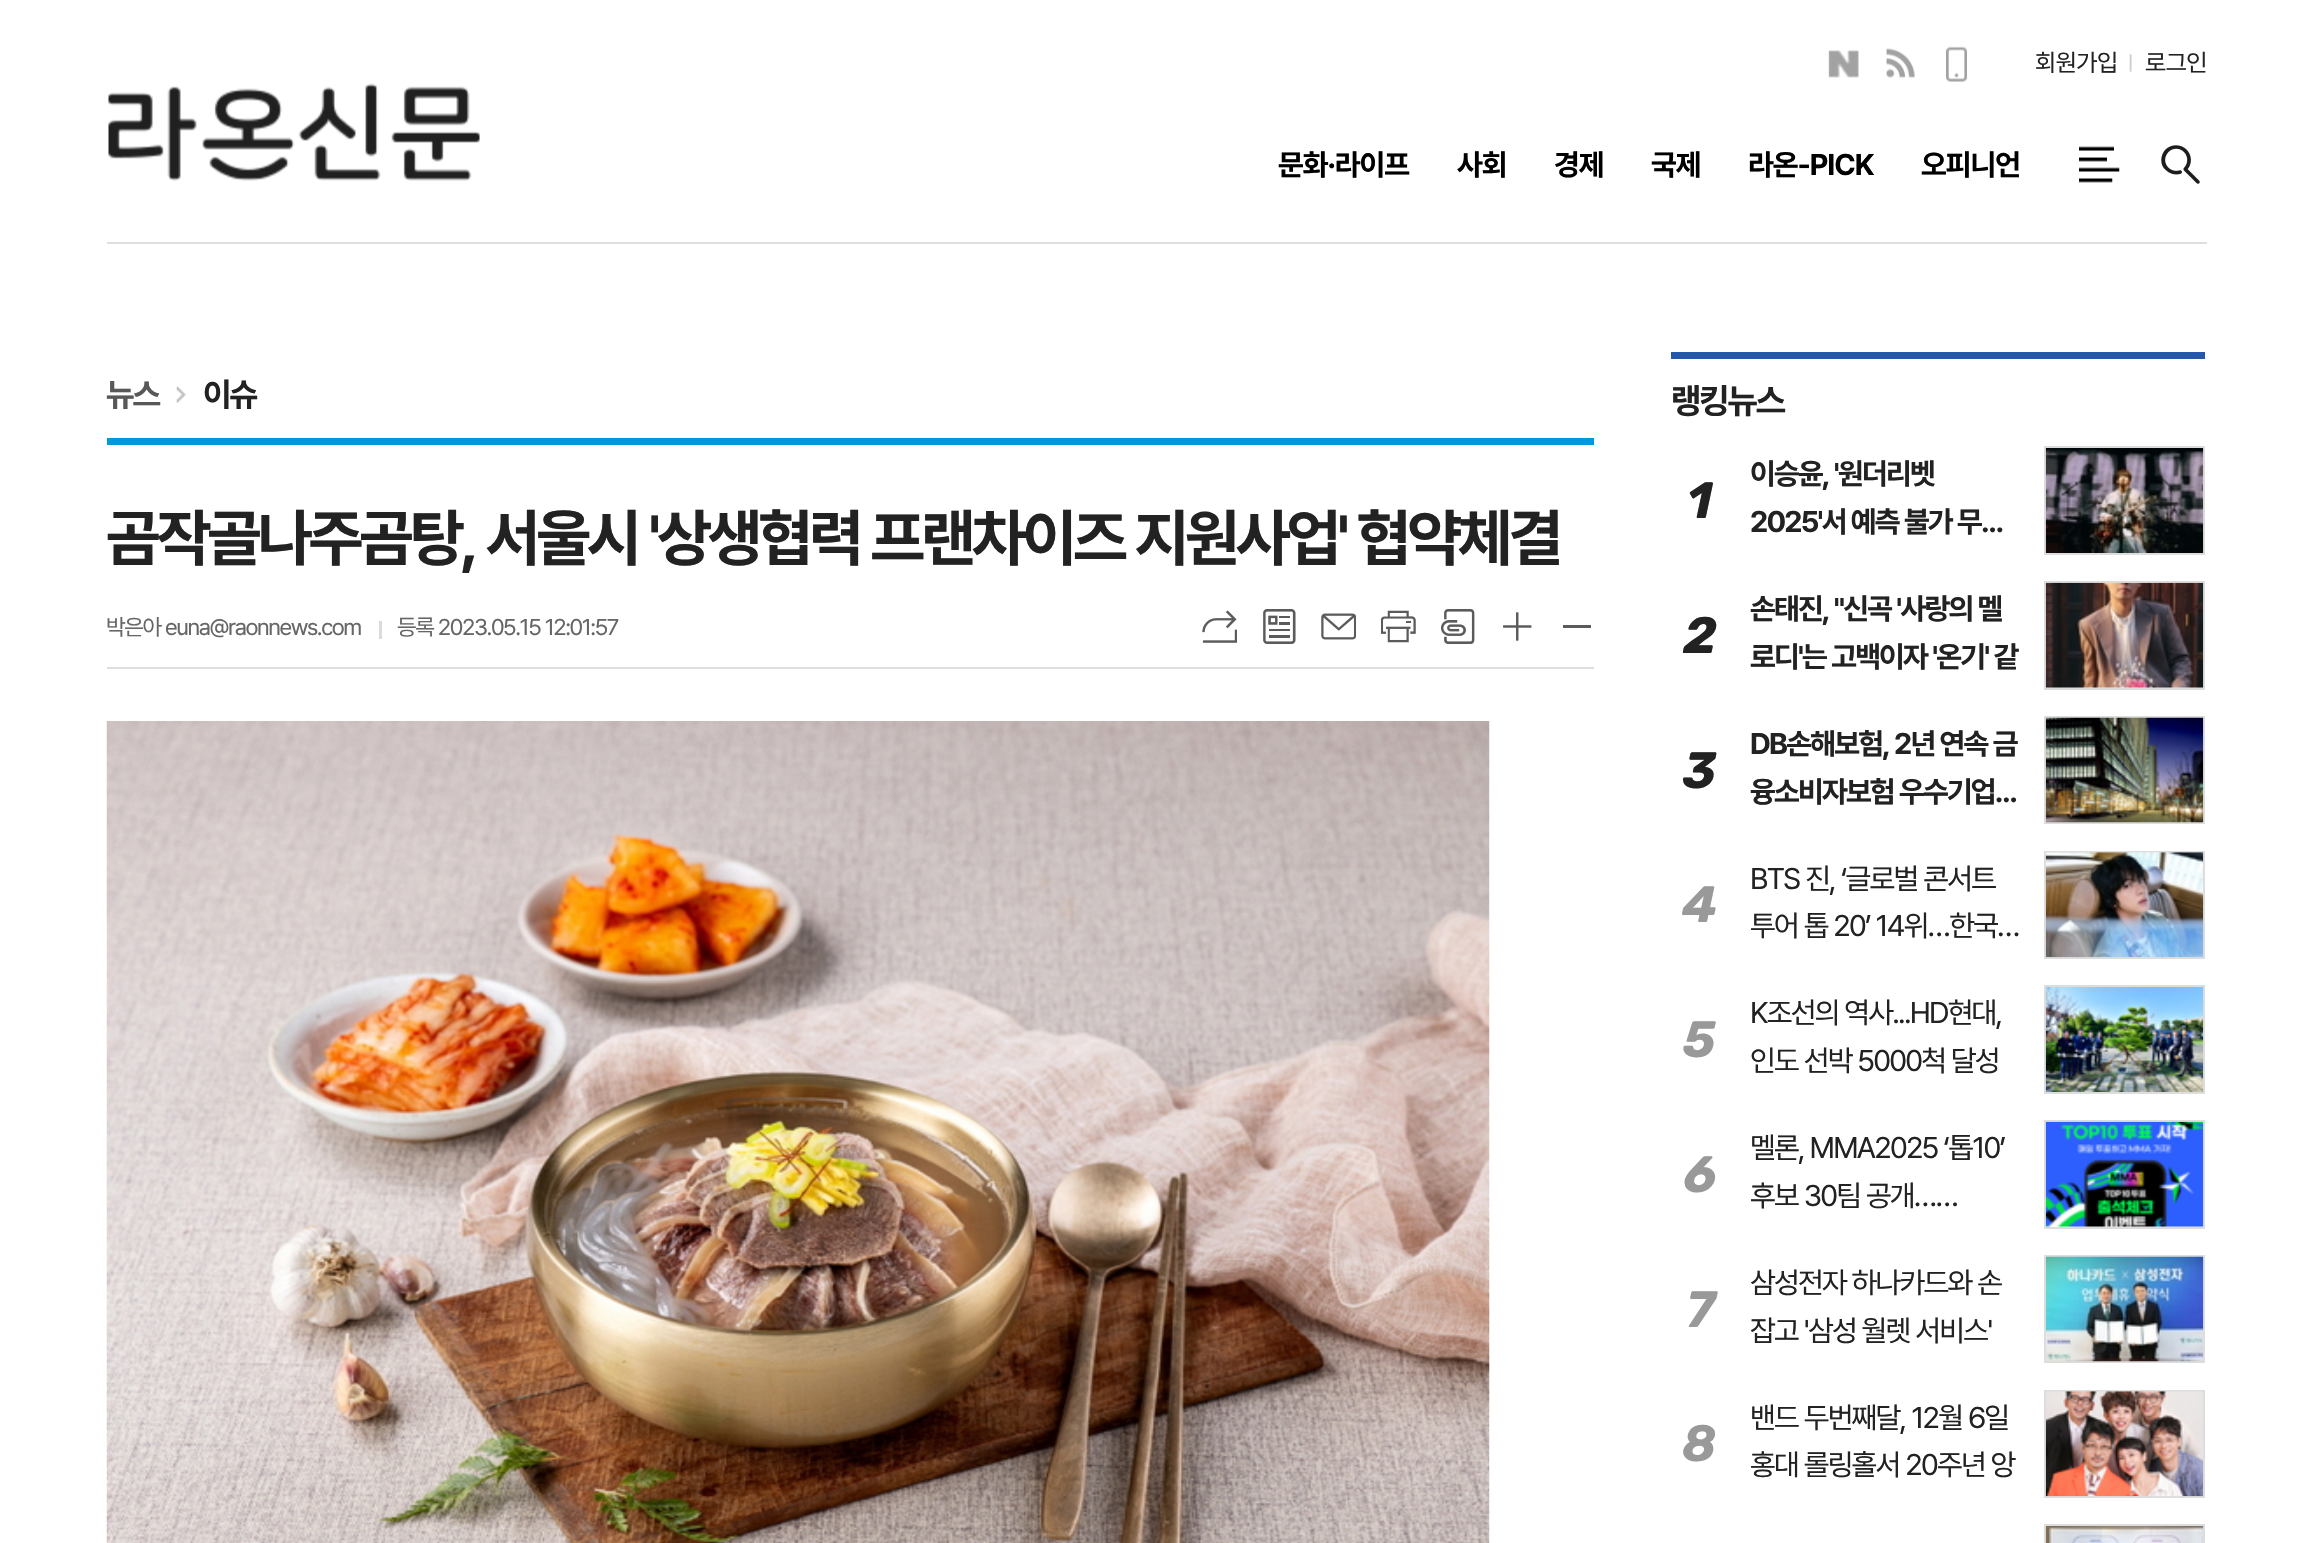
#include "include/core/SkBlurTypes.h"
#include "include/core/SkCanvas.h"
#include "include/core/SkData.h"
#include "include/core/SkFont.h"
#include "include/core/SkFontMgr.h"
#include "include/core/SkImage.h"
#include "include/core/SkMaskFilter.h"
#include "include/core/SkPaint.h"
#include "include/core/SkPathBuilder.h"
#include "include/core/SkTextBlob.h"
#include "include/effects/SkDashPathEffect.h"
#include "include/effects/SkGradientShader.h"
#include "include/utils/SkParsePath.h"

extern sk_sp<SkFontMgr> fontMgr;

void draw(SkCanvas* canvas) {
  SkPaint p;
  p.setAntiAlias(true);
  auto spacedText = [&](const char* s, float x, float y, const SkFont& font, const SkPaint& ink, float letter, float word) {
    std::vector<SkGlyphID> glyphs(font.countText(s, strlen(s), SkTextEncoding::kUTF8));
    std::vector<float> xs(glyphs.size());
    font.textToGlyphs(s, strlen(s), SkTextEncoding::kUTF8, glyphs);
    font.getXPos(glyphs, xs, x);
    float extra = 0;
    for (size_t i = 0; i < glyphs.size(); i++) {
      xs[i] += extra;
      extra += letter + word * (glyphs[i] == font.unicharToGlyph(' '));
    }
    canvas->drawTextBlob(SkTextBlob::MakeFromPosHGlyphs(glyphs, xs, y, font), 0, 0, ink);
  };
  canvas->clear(SK_ColorWHITE);
  p.setColor(SkColorSetRGB(222, 222, 222));
  canvas->drawRect(SkRect::MakeLTRB(107, 242, 2207, 244), p);
  canvas->drawImageRect(SkImages::DeferredFromEncodedData(SkData::MakeFromFileName("images/1.png")), SkRect::MakeLTRB(108, 83, 480, 181), SkSamplingOptions());
  canvas->drawImageRect(SkImages::DeferredFromEncodedData(SkData::MakeFromFileName("images/2.png")), SkRect::MakeLTRB(1828, 50, 1859, 78), SkSamplingOptions());
  canvas->drawImageRect(SkImages::DeferredFromEncodedData(SkData::MakeFromFileName("images/3.png")), SkRect::MakeLTRB(1886, 48, 1915, 78), SkSamplingOptions());
  canvas->drawImageRect(SkImages::DeferredFromEncodedData(SkData::MakeFromFileName("images/4.png")), SkRect::MakeLTRB(1946, 46, 1967, 82), SkSamplingOptions());
  canvas->drawImageRect(SkImages::DeferredFromEncodedData(SkData::MakeFromFileName("images/5.png")), SkRect::MakeLTRB(2129, 53, 2132, 73), SkSamplingOptions());
  canvas->drawImageRect(SkImages::DeferredFromEncodedData(SkData::MakeFromFileName("images/6.png")), SkRect::MakeLTRB(2079, 146, 2120, 183), SkSamplingOptions());
  canvas->drawImageRect(SkImages::DeferredFromEncodedData(SkData::MakeFromFileName("images/7.png")), SkRect::MakeLTRB(2161, 145, 2200, 184), SkSamplingOptions());
  p.setColor(SkColorSetRGB(0, 153, 220));
  canvas->drawRect(SkRect::MakeLTRB(107, 438, 1594, 445), p);
  canvas->drawImageRect(SkImages::DeferredFromEncodedData(SkData::MakeFromFileName("images/8.png")), SkRect::MakeLTRB(176, 386, 186, 403), SkSamplingOptions());
  p.setColor(SkColorSetRGB(222, 222, 222));
  canvas->drawRect(SkRect::MakeLTRB(107, 667, 1594, 669), p);
  p.setColor(SkColorSetRGB(219, 219, 219));
  canvas->drawRect(SkRect::MakeLTRB(379, 621, 382, 639), p);
  canvas->drawImageRect(SkImages::DeferredFromEncodedData(SkData::MakeFromFileName("images/9.png")), SkRect::MakeLTRB(1202, 610, 1237, 643), SkSamplingOptions());
  canvas->drawImageRect(SkImages::DeferredFromEncodedData(SkData::MakeFromFileName("images/10.png")), SkRect::MakeLTRB(1263, 609, 1296, 644), SkSamplingOptions());
  canvas->drawImageRect(SkImages::DeferredFromEncodedData(SkData::MakeFromFileName("images/11.png")), SkRect::MakeLTRB(1321, 613, 1356, 640), SkSamplingOptions());
  canvas->drawImageRect(SkImages::DeferredFromEncodedData(SkData::MakeFromFileName("images/12.png")), SkRect::MakeLTRB(1381, 610, 1416, 643), SkSamplingOptions());
  canvas->drawImageRect(SkImages::DeferredFromEncodedData(SkData::MakeFromFileName("images/13.png")), SkRect::MakeLTRB(1441, 609, 1475, 644), SkSamplingOptions());
  canvas->drawImageRect(SkImages::DeferredFromEncodedData(SkData::MakeFromFileName("images/14.png")), SkRect::MakeLTRB(1503, 612, 1532, 641), SkSamplingOptions());
  p.setColor(SkColorSetRGB(91, 91, 91));
  canvas->drawRect(SkRect::MakeLTRB(1563, 625, 1591, 628), p);
  canvas->drawImageRect(SkImages::DeferredFromEncodedData(SkData::MakeFromFileName("images/15.png")), SkRect::MakeLTRB(106, 721, 1490, 1543), SkSamplingOptions());
  p.setColor(SkColorSetRGB(37, 87, 170));
  canvas->drawRect(SkRect::MakeLTRB(1671, 352, 2205, 359), p);
  p.setStyle(SkPaint::kStroke_Style);
  p.setStrokeWidth(2);
  p.setColor(SkColorSetRGB(221, 221, 221));
  canvas->drawRect(SkRect::MakeLTRB(2045, 447, 2204, 554), p);
  canvas->drawImageRect(SkImages::DeferredFromEncodedData(SkData::MakeFromFileName("images/16.png")), SkRect::MakeLTRB(2045, 448, 2204, 553), SkSamplingOptions());
  canvas->drawRect(SkRect::MakeLTRB(2045, 582, 2204, 689), p);
  canvas->drawImageRect(SkImages::DeferredFromEncodedData(SkData::MakeFromFileName("images/17.png")), SkRect::MakeLTRB(2045, 582, 2204, 688), SkSamplingOptions());
  canvas->drawRect(SkRect::MakeLTRB(2045, 717, 2204, 823), p);
  canvas->drawImageRect(SkImages::DeferredFromEncodedData(SkData::MakeFromFileName("images/18.png")), SkRect::MakeLTRB(2045, 717, 2204, 823), SkSamplingOptions());
  canvas->drawRect(SkRect::MakeLTRB(2045, 852, 2204, 958), p);
  canvas->drawImageRect(SkImages::DeferredFromEncodedData(SkData::MakeFromFileName("images/19.png")), SkRect::MakeLTRB(2045, 852, 2204, 958), SkSamplingOptions());
  canvas->drawRect(SkRect::MakeLTRB(2045, 986, 2204, 1093), p);
  canvas->drawImageRect(SkImages::DeferredFromEncodedData(SkData::MakeFromFileName("images/20.png")), SkRect::MakeLTRB(2045, 987, 2204, 1092), SkSamplingOptions());
  canvas->drawRect(SkRect::MakeLTRB(2045, 1121, 2204, 1228), p);
  canvas->drawImageRect(SkImages::DeferredFromEncodedData(SkData::MakeFromFileName("images/21.png")), SkRect::MakeLTRB(2045, 1121, 2204, 1227), SkSamplingOptions());
  canvas->drawRect(SkRect::MakeLTRB(2045, 1256, 2204, 1362), p);
  canvas->drawImageRect(SkImages::DeferredFromEncodedData(SkData::MakeFromFileName("images/22.png")), SkRect::MakeLTRB(2045, 1256, 2204, 1362), SkSamplingOptions());
  canvas->drawRect(SkRect::MakeLTRB(2045, 1391, 2204, 1497), p);
  canvas->drawImageRect(SkImages::DeferredFromEncodedData(SkData::MakeFromFileName("images/23.png")), SkRect::MakeLTRB(2045, 1391, 2204, 1497), SkSamplingOptions());
  canvas->drawRect(SkRect::MakeLTRB(2045, 1525, 2204, 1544), p);
  canvas->drawImageRect(SkImages::DeferredFromEncodedData(SkData::MakeFromFileName("images/24.png")), SkRect::MakeLTRB(2045, 1526, 2204, 1543), SkSamplingOptions());
  SkFont font1(fontMgr->matchFamilyStyle("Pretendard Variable", SkFontStyle::Normal()), 24.5f);
  font1.setSubpixel(true);
  p.setStyle(SkPaint::kFill_Style);
  p.setColor(SkColorSetRGB(34, 34, 34));
  spacedText("회원가입", 2035, 71, font1, p, -0.5f, 0);
  spacedText("로그인", 2145, 71, font1, p, -0.5f, 0);
  SkFont font2(fontMgr->matchFamilyStyle("Pretendard Variable", SkFontStyle::Bold()), 29.75f);
  font2.setSubpixel(true);
  p.setColor(SK_ColorBLACK);
  spacedText("문화·라이프", 1278, 175, font2, p, -1, 0);
  spacedText("사회", 1457, 175, font2, p, -1, 0);
  spacedText("경제", 1554, 175, font2, p, -1, 0);
  spacedText("국제", 1651, 175, font2, p, -1, 0);
  spacedText("라온-PICK", 1748, 175, font2, p, -1, 0);
  spacedText("오피니언", 1921, 175, font2, p, -1, 0);
  SkFont font3(fontMgr->matchFamilyStyle("Pretendard Variable", SkFontStyle::Bold()), 33);
  font3.setSubpixel(true);
  p.setColor(SkColorSetRGB(88, 88, 88));
  spacedText("뉴스", 106, 406, font3, p, -2, 0);
  p.setColor(SkColorSetRGB(34, 34, 34));
  spacedText("이슈", 203, 406, font3, p, -2, 0);
  SkFont font4(fontMgr->matchFamilyStyle("Pretendard Variable", SkFontStyle::Bold()), 63);
  font4.setSubpixel(true);
  spacedText("곰작골나주곰탕, 서울시 '상생협력 프랜차이즈 지원사업' 협약체결", 106, 560, font4, p, -3.8f, 0);
  SkFont font5(fontMgr->matchFamilyStyle("Pretendard Variable", SkFontStyle::Normal()), 22.75f);
  font5.setSubpixel(true);
  p.setColor(SkColorSetRGB(102, 102, 102));
  spacedText("박은아 euna@raonnews.com", 106, 635, font5, p, -1.4f, 0);
  spacedText("등록 2023.05.15 12:01:57", 397, 635, font5, p, -1.4f, 0);
  SkFont font6(fontMgr->matchFamilyStyle("Pretendard Variable", SkFontStyle::Bold()), 35);
  font6.setSubpixel(true);
  p.setColor(SkColorSetRGB(34, 34, 34));
  spacedText("랭킹뉴스", 1671, 413, font6, p, -2, 0);
  SkFont font7(fontMgr->matchFamilyStyle("Rubik", SkFontStyle(300, SkFontStyle::kNormal_Width, SkFontStyle::kItalic_Slant)), 51);
  font7.setSubpixel(true);
  spacedText("1", 1687, 518, font7, p, -3, 0);
  spacedText("이승윤, '원더리벳", 1750, 484, font2, p, -1.75f, 0);
  spacedText("2025'서 예측 불가 무…", 1750, 532, font2, p, -1.75f, 0);
  spacedText("2", 1683, 653, font7, p, -3, 0);
  spacedText("손태진, \"신곡 '사랑의 멜", 1750, 619, font2, p, -1.75f, 0);
  spacedText("로디'는 고백이자 '온기' 같", 1750, 667, font2, p, -1.75f, 0);
  spacedText("3", 1682, 788, font7, p, -3, 0);
  spacedText("DB손해보험, 2년 연속 금", 1750, 754, font2, p, -1.75f, 0);
  spacedText("융소비자보험 우수기업…", 1750, 802, font2, p, -1.75f, 0);
  p.setColor(SkColorSetRGB(153, 153, 153));
  spacedText("4", 1682, 922, font7, p, -3, 0);
  SkFont font8(fontMgr->matchFamilyStyle("Pretendard Variable", SkFontStyle::Normal()), 29.75f);
  font8.setSubpixel(true);
  p.setColor(SkColorSetRGB(34, 34, 34));
  spacedText("BTS 진, ‘글로벌 콘서트", 1750, 889, font8, p, -1.75f, 0);
  spacedText("투어 톱 20’ 14위…한국…", 1750, 936, font8, p, -1.75f, 0);
  p.setColor(SkColorSetRGB(153, 153, 153));
  spacedText("5", 1683, 1057, font7, p, -3, 0);
  p.setColor(SkColorSetRGB(34, 34, 34));
  spacedText("K조선의 역사...HD현대,", 1750, 1023, font8, p, -1.75f, 0);
  spacedText("인도 선박 5000척 달성", 1750, 1071, font8, p, -1.75f, 0);
  p.setColor(SkColorSetRGB(153, 153, 153));
  spacedText("6", 1683, 1192, font7, p, -3, 0);
  p.setColor(SkColorSetRGB(34, 34, 34));
  spacedText("멜론, MMA2025 ‘톱10’", 1750, 1158, font8, p, -1.75f, 0);
  spacedText("후보 30팀 공개……", 1750, 1206, font8, p, -1.75f, 0);
  p.setColor(SkColorSetRGB(153, 153, 153));
  spacedText("7", 1685, 1327, font7, p, -3, 0);
  p.setColor(SkColorSetRGB(34, 34, 34));
  spacedText("삼성전자 하나카드와 손", 1750, 1293, font8, p, -1.75f, 0);
  spacedText("잡고 '삼성 월렛 서비스'", 1750, 1341, font8, p, -1.75f, 0);
  p.setColor(SkColorSetRGB(153, 153, 153));
  spacedText("8", 1682, 1461, font7, p, -3, 0);
  p.setColor(SkColorSetRGB(34, 34, 34));
  spacedText("밴드 두번째달, 12월 6일", 1750, 1428, font8, p, -1.75f, 0);
  spacedText("홍대 롤링홀서 20주년 앙", 1750, 1475, font8, p, -1.75f, 0);
}
